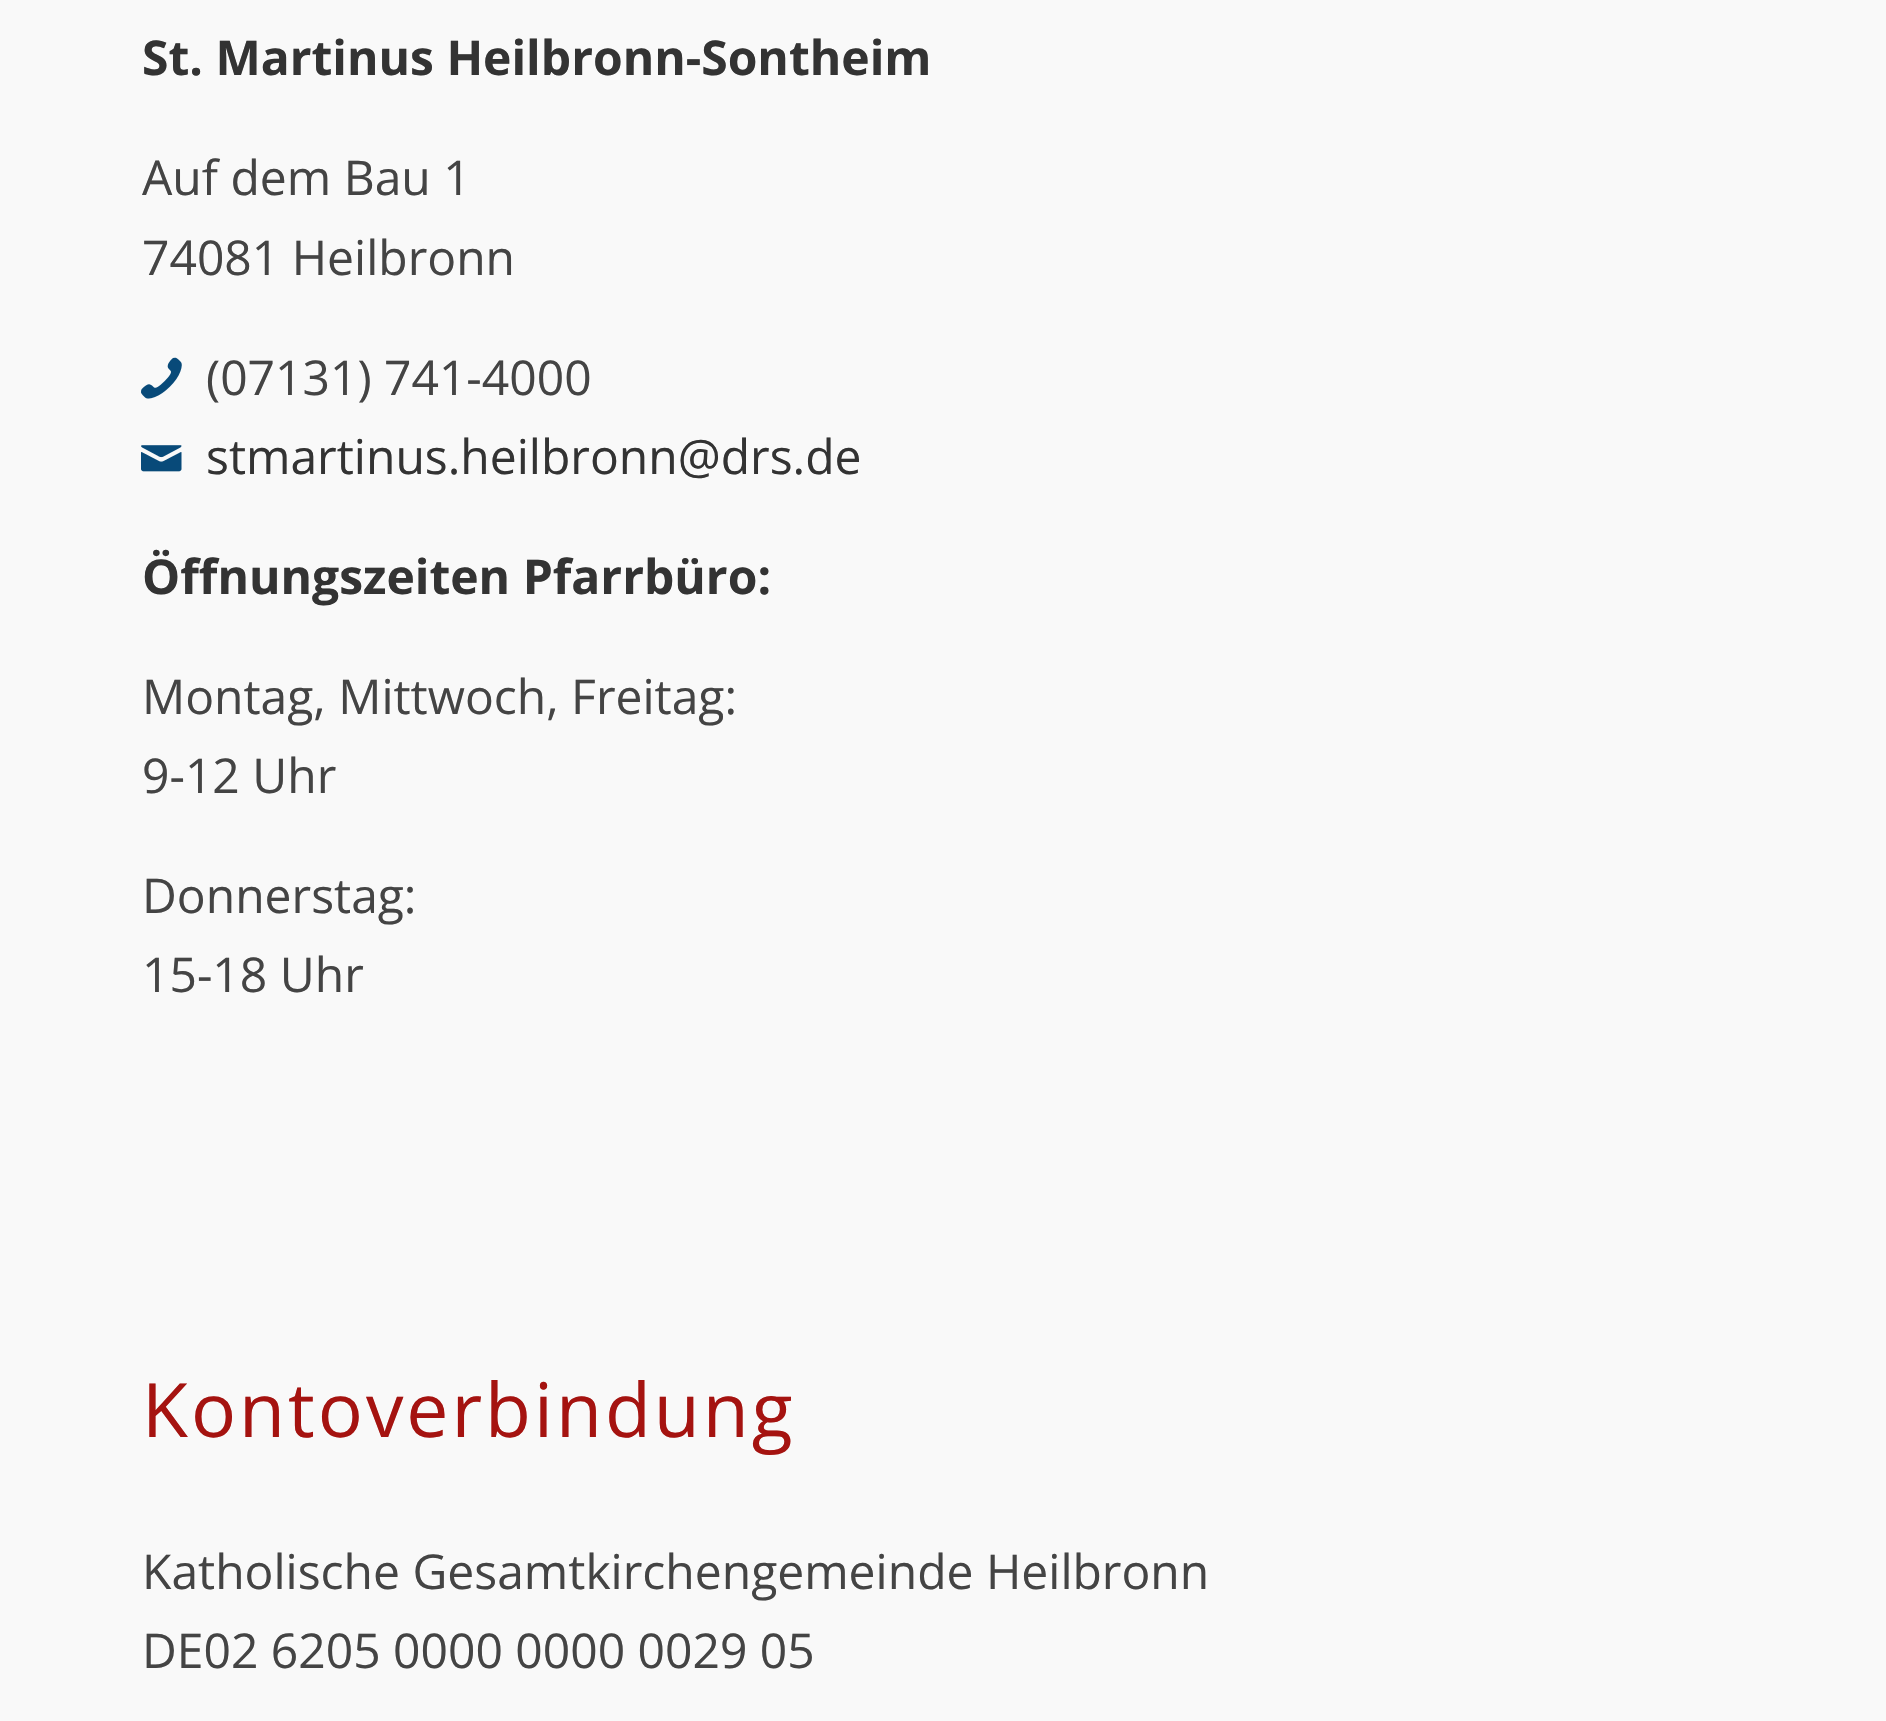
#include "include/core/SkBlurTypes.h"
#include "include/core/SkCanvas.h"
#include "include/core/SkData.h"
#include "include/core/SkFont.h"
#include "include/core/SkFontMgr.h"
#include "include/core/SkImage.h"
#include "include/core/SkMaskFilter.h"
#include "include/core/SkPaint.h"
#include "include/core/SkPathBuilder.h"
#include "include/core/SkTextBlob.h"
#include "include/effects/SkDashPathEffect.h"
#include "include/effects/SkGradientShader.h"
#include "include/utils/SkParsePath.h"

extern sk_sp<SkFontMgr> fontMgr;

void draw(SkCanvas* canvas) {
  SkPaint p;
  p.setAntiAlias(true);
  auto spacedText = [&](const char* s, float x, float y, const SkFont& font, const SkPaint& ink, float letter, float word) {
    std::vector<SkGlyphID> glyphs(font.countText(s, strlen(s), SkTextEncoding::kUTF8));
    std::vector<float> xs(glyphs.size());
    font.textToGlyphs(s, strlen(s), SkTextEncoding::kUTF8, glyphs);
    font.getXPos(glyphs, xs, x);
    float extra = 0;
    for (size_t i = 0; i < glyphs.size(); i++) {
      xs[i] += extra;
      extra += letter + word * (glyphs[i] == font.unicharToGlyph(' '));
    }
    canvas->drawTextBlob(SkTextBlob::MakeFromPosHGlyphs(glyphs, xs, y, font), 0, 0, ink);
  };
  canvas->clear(SkColorSetRGB(249, 249, 249));
  canvas->drawImageRect(SkImages::DeferredFromEncodedData(SkData::MakeFromFileName("images/1.png")), SkRect::MakeLTRB(141, 357, 182, 399), SkSamplingOptions());
  canvas->drawImageRect(SkImages::DeferredFromEncodedData(SkData::MakeFromFileName("images/2.png")), SkRect::MakeLTRB(141, 445, 182, 472), SkSamplingOptions());
  SkFont font1(fontMgr->matchFamilyStyle("Open Sans", SkFontStyle::Bold()), 48);
  font1.setSubpixel(true);
  p.setColor(SkColorSetRGB(51, 51, 51));
  canvas->drawString("St. Martinus Heilbronn-Sontheim", 142, 75, font1, p);
  SkFont font2(fontMgr->matchFamilyStyle("Open Sans", SkFontStyle::Normal()), 48);
  font2.setSubpixel(true);
  p.setColor(SkColorSetRGB(68, 68, 68));
  canvas->drawString("Auf dem Bau 1", 142, 195, font2, p);
  canvas->drawString("74081 Heilbronn", 142, 275, font2, p);
  canvas->drawString("(07131) 741-4000", 206, 395, font2, p);
  p.setColor(SkColorSetRGB(51, 51, 51));
  canvas->drawString("stmartinus.heilbronn@drs.de", 206, 474, font2, p);
  canvas->drawString("Öffnungszeiten Pfarrbüro:", 142, 594, font1, p);
  p.setColor(SkColorSetRGB(68, 68, 68));
  canvas->drawString("Montag, Mittwoch, Freitag:", 142, 714, font2, p);
  canvas->drawString("9-12 Uhr", 142, 793, font2, p);
  canvas->drawString("Donnerstag:", 142, 913, font2, p);
  canvas->drawString("15-18 Uhr", 142, 992, font2, p);
  SkFont font3(fontMgr->matchFamilyStyle("Open Sans", SkFontStyle::Normal()), 75);
  font3.setSubpixel(true);
  p.setColor(SkColorSetRGB(165, 19, 16));
  spacedText("Kontoverbindung", 142, 1437, font3, p, 3, 0);
  p.setColor(SkColorSetRGB(68, 68, 68));
  canvas->drawString("Katholische Gesamtkirchengemeinde Heilbronn", 142, 1589, font2, p);
  canvas->drawString("DE02 6205 0000 0000 0029 05", 142, 1668, font2, p);
}
